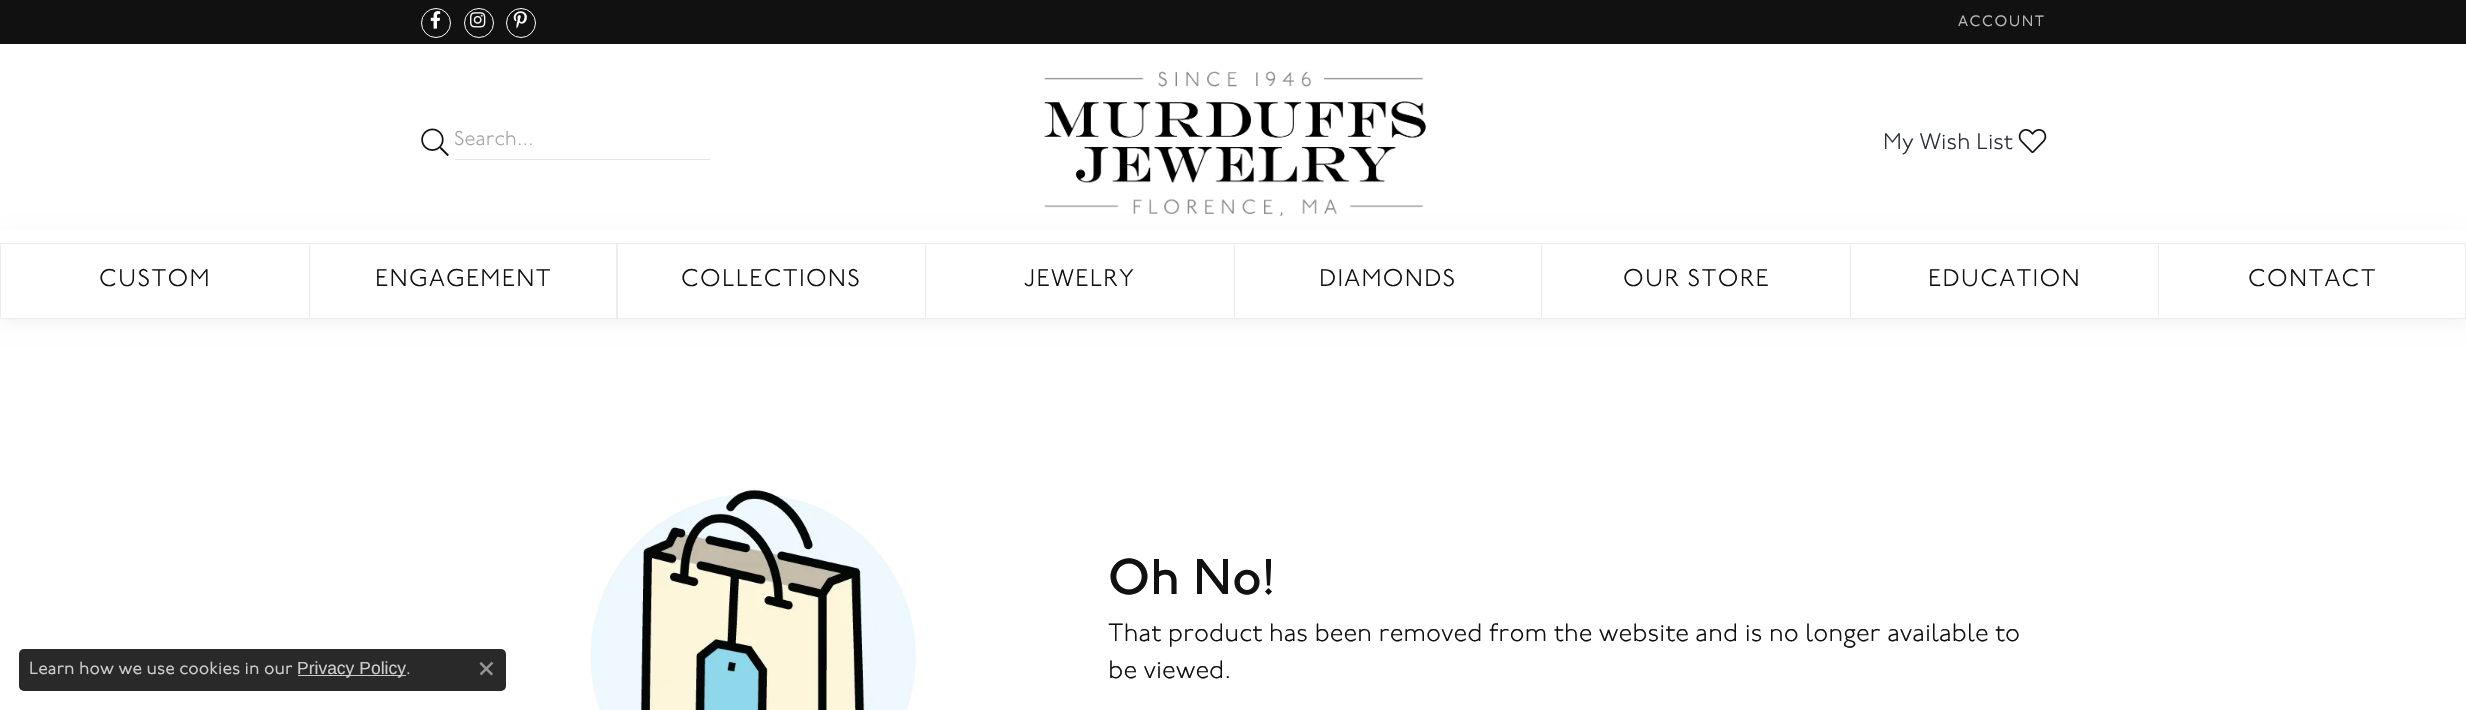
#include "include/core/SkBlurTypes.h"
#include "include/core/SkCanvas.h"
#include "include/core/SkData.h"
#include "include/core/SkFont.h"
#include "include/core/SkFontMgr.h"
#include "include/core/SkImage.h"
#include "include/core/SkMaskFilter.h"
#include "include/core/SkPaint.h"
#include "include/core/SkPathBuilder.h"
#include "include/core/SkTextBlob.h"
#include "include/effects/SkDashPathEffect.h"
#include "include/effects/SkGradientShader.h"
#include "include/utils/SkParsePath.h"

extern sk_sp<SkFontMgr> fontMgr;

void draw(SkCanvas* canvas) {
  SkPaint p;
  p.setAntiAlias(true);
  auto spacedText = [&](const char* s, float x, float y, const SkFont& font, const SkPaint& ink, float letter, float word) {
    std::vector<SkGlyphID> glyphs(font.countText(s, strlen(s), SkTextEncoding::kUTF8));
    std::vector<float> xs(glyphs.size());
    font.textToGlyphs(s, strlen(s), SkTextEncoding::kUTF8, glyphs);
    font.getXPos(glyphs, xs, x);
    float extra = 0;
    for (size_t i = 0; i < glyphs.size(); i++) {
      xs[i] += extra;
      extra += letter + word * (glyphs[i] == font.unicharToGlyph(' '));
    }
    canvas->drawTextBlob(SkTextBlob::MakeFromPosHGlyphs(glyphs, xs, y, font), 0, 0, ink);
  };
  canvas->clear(SK_ColorWHITE);
  p.setColor(SkColorSetRGB(17, 17, 17));
  canvas->drawRect(SkRect::MakeLTRB(0, 0, 2466, 44), p);
  p.setStyle(SkPaint::kStroke_Style);
  p.setStrokeWidth(1);
  p.setColor(SK_ColorWHITE);
  canvas->drawCircle(436, 23, 14.5f, p);
  canvas->drawImageRect(SkImages::DeferredFromEncodedData(SkData::MakeFromFileName("images/1.png")), SkRect::MakeLTRB(430, 11, 441, 29), SkSamplingOptions());
  canvas->drawCircle(479, 23, 14.5f, p);
  canvas->drawImageRect(SkImages::DeferredFromEncodedData(SkData::MakeFromFileName("images/2.png")), SkRect::MakeLTRB(470, 12, 486, 28), SkSamplingOptions());
  canvas->drawCircle(521, 23, 14.5f, p);
  canvas->drawImageRect(SkImages::DeferredFromEncodedData(SkData::MakeFromFileName("images/3.png")), SkRect::MakeLTRB(513, 11, 527, 29), SkSamplingOptions());
  p.setStyle(SkPaint::kFill_Style);
  p.setColor(SkColorSetARGB(18, 0, 0, 0));
  p.setMaskFilter(SkMaskFilter::MakeBlur(kNormal_SkBlurStyle, 12.5f));
  canvas->drawRect(SkRect::MakeLTRB(0, 243, 2466, 319), p);
  p.setMaskFilter(nullptr);
  p.setColor(SK_ColorWHITE);
  canvas->drawRect(SkRect::MakeLTRB(0, 243, 2465, 319), p);
  p.setColor(SkColorSetARGB(18, 0, 0, 0));
  canvas->drawPath(SkPathBuilder().moveTo(0, 242).lineTo(309, 242).lineTo(309, 244).lineTo(1, 244).close().detach(), p);
  p.setColor(SkColorSetRGB(236, 236, 236));
  canvas->drawPath(SkPathBuilder().moveTo(309, 319).lineTo(0, 319).lineTo(1, 318).lineTo(309, 318).close().detach(), p);
  p.setColor(SkColorSetARGB(18, 0, 0, 0));
  canvas->drawPath(SkPathBuilder().moveTo(0, 319).lineTo(0, 242).lineTo(1, 244).lineTo(1, 318).close().detach(), p);
  canvas->drawPath(SkPathBuilder().moveTo(309, 242).lineTo(616, 242).lineTo(616, 244).lineTo(310, 244).close().detach(), p);
  p.setColor(SkColorSetRGB(236, 236, 236));
  canvas->drawPath(SkPathBuilder().moveTo(616, 319).lineTo(309, 319).lineTo(310, 318).lineTo(616, 318).close().detach(), p);
  p.setColor(SkColorSetARGB(18, 0, 0, 0));
  canvas->drawPath(SkPathBuilder().moveTo(309, 319).lineTo(309, 242).lineTo(310, 244).lineTo(310, 318).close().detach(), p);
  canvas->drawPath(SkPathBuilder().moveTo(616, 242).lineTo(925, 242).lineTo(925, 244).lineTo(618, 244).close().detach(), p);
  p.setColor(SkColorSetRGB(236, 236, 236));
  canvas->drawPath(SkPathBuilder().moveTo(925, 319).lineTo(616, 319).lineTo(618, 318).lineTo(925, 318).close().detach(), p);
  p.setColor(SkColorSetARGB(18, 0, 0, 0));
  canvas->drawPath(SkPathBuilder().moveTo(616, 319).lineTo(616, 242).lineTo(618, 244).lineTo(618, 318).close().detach(), p);
  canvas->drawPath(SkPathBuilder().moveTo(925, 242).lineTo(1234, 242).lineTo(1234, 244).lineTo(926, 244).close().detach(), p);
  p.setColor(SkColorSetRGB(236, 236, 236));
  canvas->drawPath(SkPathBuilder().moveTo(1234, 319).lineTo(925, 319).lineTo(926, 318).lineTo(1234, 318).close().detach(), p);
  p.setColor(SkColorSetARGB(18, 0, 0, 0));
  canvas->drawPath(SkPathBuilder().moveTo(925, 319).lineTo(925, 242).lineTo(926, 244).lineTo(926, 318).close().detach(), p);
  canvas->drawPath(SkPathBuilder().moveTo(1234, 242).lineTo(1541, 242).lineTo(1541, 244).lineTo(1235, 244).close().detach(), p);
  p.setColor(SkColorSetRGB(236, 236, 236));
  canvas->drawPath(SkPathBuilder().moveTo(1541, 319).lineTo(1234, 319).lineTo(1235, 318).lineTo(1541, 318).close().detach(), p);
  p.setColor(SkColorSetARGB(18, 0, 0, 0));
  canvas->drawPath(SkPathBuilder().moveTo(1234, 319).lineTo(1234, 242).lineTo(1235, 244).lineTo(1235, 318).close().detach(), p);
  canvas->drawPath(SkPathBuilder().moveTo(1541, 242).lineTo(1850, 242).lineTo(1850, 244).lineTo(1542, 244).close().detach(), p);
  p.setColor(SkColorSetRGB(236, 236, 236));
  canvas->drawPath(SkPathBuilder().moveTo(1850, 319).lineTo(1541, 319).lineTo(1542, 318).lineTo(1850, 318).close().detach(), p);
  p.setColor(SkColorSetARGB(18, 0, 0, 0));
  canvas->drawPath(SkPathBuilder().moveTo(1541, 319).lineTo(1541, 242).lineTo(1542, 244).lineTo(1542, 318).close().detach(), p);
  canvas->drawPath(SkPathBuilder().moveTo(1850, 242).lineTo(2158, 242).lineTo(2158, 244).lineTo(1851, 244).close().detach(), p);
  p.setColor(SkColorSetRGB(236, 236, 236));
  canvas->drawPath(SkPathBuilder().moveTo(2158, 319).lineTo(1850, 319).lineTo(1851, 318).lineTo(2158, 318).close().detach(), p);
  p.setColor(SkColorSetARGB(18, 0, 0, 0));
  canvas->drawPath(SkPathBuilder().moveTo(1850, 319).lineTo(1850, 242).lineTo(1851, 244).lineTo(1851, 318).close().detach(), p);
  p.setColor(SK_ColorWHITE);
  canvas->drawRect(SkRect::MakeLTRB(0, 230, 2466, 243), p);
  canvas->drawImageRect(SkImages::DeferredFromEncodedData(SkData::MakeFromFileName("images/4.png")), SkRect::MakeLTRB(421, 128, 449, 156), SkSamplingOptions());
  p.setColor(SkColorSetRGB(228, 228, 228));
  canvas->drawRect(SkRect::MakeLTRB(455, 159, 710, 160), p);
  canvas->drawImageRect(SkImages::DeferredFromEncodedData(SkData::MakeFromFileName("images/5.png")), SkRect::MakeLTRB(1044, 71, 1426, 216), SkSamplingOptions());
  canvas->drawImageRect(SkImages::DeferredFromEncodedData(SkData::MakeFromFileName("images/6.png")), SkRect::MakeLTRB(2018, 129, 2047, 153), SkSamplingOptions());
  p.setStyle(SkPaint::kStroke_Style);
  p.setColor(SkColorSetRGB(236, 236, 236));
  canvas->drawRect(SkRect::MakeLTRB(2158.5f, 243.5f, 2465.5f, 318.5f), p);
  p.setStyle(SkPaint::kFill_Style);
  p.setColor(SkColorSetRGB(41, 41, 41));
  canvas->drawRoundRect(SkRect::MakeLTRB(19, 649, 506, 691), 5, 5, p);
  p.setColor(SkColorSetRGB(204, 204, 204));
  canvas->drawRect(SkRect::MakeLTRB(298, 675, 406, 676), p);
  canvas->drawImageRect(SkImages::DeferredFromEncodedData(SkData::MakeFromFileName("images/7.png")), SkRect::MakeLTRB(479, 661, 494, 676), SkSamplingOptions());
  canvas->drawImageRect(SkImages::DeferredFromEncodedData(SkData::MakeFromFileName("images/8.png")), SkRect::MakeLTRB(590, 489, 916, 710), SkSamplingOptions());
  SkFont font1(fontMgr->matchFamilyStyle("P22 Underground", SkFontStyle::Normal()), 15);
  font1.setSubpixel(true);
  p.setColor(SkColorSetRGB(184, 184, 184));
  spacedText("ACCOUNT", 1958, 26, font1, p, 1.5f, 0);
  SkFont font2(fontMgr->matchFamilyStyle("P22 Underground", SkFontStyle(300, SkFontStyle::kNormal_Width, SkFontStyle::kUpright_Slant)), 20);
  font2.setSubpixel(true);
  p.setColor(SkColorSetRGB(166, 166, 166));
  canvas->drawString("Search...", 454, 145, font2, p);
  SkFont font3(fontMgr->matchFamilyStyle("P22 Underground", SkFontStyle(300, SkFontStyle::kNormal_Width, SkFontStyle::kUpright_Slant)), 22.5f);
  font3.setSubpixel(true);
  p.setColor(SkColorSetRGB(43, 47, 58));
  canvas->drawString("My Wish List", 1883, 149, font3, p);
  SkFont font4(fontMgr->matchFamilyStyle("P22 Underground", SkFontStyle(300, SkFontStyle::kNormal_Width, SkFontStyle::kUpright_Slant)), 24);
  font4.setSubpixel(true);
  p.setColor(SkColorSetRGB(17, 17, 17));
  spacedText("CUSTOM", 99, 286, font4, p, 1.25f, 0);
  spacedText("ENGAGEMENT", 375, 286, font4, p, 1.25f, 0);
  spacedText("COLLECTIONS", 681, 286, font4, p, 1.25f, 0);
  spacedText("JEWELRY", 1024, 286, font4, p, 1.25f, 0);
  spacedText("DIAMONDS", 1319, 286, font4, p, 1.25f, 0);
  spacedText("OUR STORE", 1623, 286, font4, p, 1.25f, 0);
  spacedText("EDUCATION", 1928, 286, font4, p, 1.25f, 0);
  spacedText("CONTACT", 2248, 286, font4, p, 1.25f, 0);
  SkFont font5(fontMgr->matchFamilyStyle("P22 Underground", SkFontStyle::Normal()), 17.5f);
  font5.setSubpixel(true);
  p.setColor(SkColorSetRGB(204, 204, 204));
  canvas->drawString("Learn how we use cookies in our", 29, 674, font5, p);
  SkFont font6(fontMgr->matchFamilyStyle("Liberation Sans", SkFontStyle::Normal()), 17.5f);
  font6.setSubpixel(true);
  canvas->drawString("Privacy Policy", 297, 674, font6, p);
  canvas->drawString(".", 406, 674, font5, p);
  SkFont font7(fontMgr->matchFamilyStyle("P22 Underground", SkFontStyle(500, SkFontStyle::kNormal_Width, SkFontStyle::kUpright_Slant)), 50);
  font7.setSubpixel(true);
  p.setColor(SkColorSetRGB(17, 17, 17));
  canvas->drawString("Oh No!", 1108, 594, font7, p);
  SkFont font8(fontMgr->matchFamilyStyle("P22 Underground", SkFontStyle(300, SkFontStyle::kNormal_Width, SkFontStyle::kUpright_Slant)), 25);
  font8.setSubpixel(true);
  canvas->drawString("That product has been removed from the website and is no longer available to", 1108, 641, font8, p);
  canvas->drawString("be viewed.", 1108, 678, font8, p);
}
